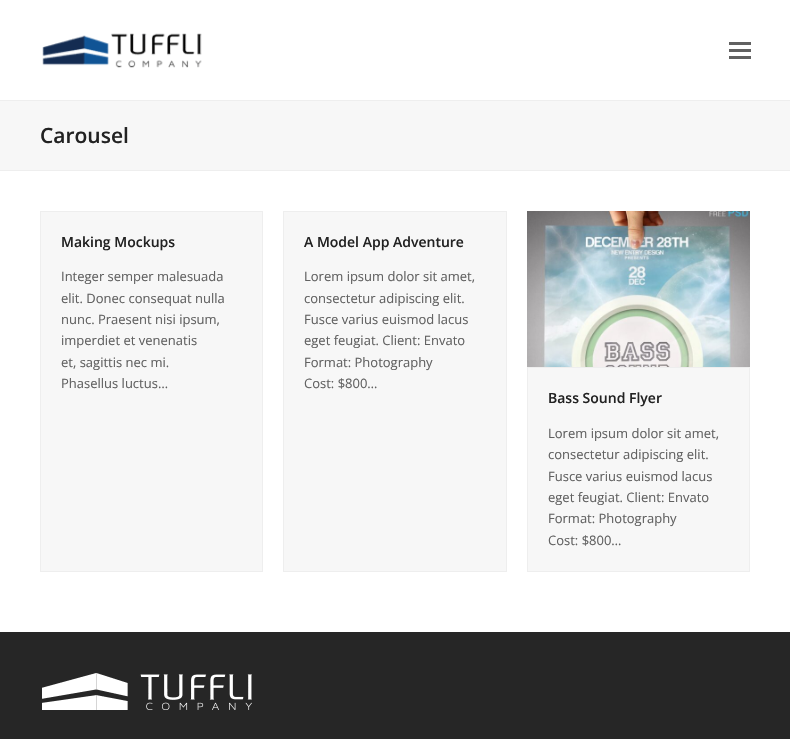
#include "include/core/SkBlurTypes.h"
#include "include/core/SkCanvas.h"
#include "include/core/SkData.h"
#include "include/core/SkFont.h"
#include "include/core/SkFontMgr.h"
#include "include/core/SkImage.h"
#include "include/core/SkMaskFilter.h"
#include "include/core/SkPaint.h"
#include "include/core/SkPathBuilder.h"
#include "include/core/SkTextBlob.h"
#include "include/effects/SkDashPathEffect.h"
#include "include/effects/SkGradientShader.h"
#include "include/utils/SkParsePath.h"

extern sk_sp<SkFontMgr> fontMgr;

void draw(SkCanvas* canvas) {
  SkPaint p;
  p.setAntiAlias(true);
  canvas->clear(SK_ColorWHITE);
  canvas->drawImageRect(SkImages::DeferredFromEncodedData(SkData::MakeFromFileName("images/1.png")), SkRect::MakeLTRB(42, 33, 202, 68), SkSamplingOptions());
  p.setColor(SkColorSetRGB(97, 97, 97));
  canvas->drawRect(SkRect::MakeLTRB(729, 49, 751, 52), p);
  canvas->drawRect(SkRect::MakeLTRB(729, 42, 751, 45), p);
  canvas->drawRect(SkRect::MakeLTRB(729, 56, 751, 59), p);
  p.setColor(SkColorSetRGB(247, 247, 247));
  canvas->drawRect(SkRect::MakeLTRB(0, 101, 790, 170), p);
  p.setColor(SkColorSetRGB(238, 238, 238));
  canvas->drawRect(SkRect::MakeLTRB(0, 100, 790, 101), p);
  canvas->drawRect(SkRect::MakeLTRB(0, 170, 790, 171), p);
  p.setColor(SkColorSetRGB(247, 247, 247));
  canvas->drawRect(SkRect::MakeLTRB(40.5f, 211.5f, 262.5f, 571.5f), p);
  p.setStyle(SkPaint::kStroke_Style);
  p.setStrokeWidth(1);
  p.setColor(SkColorSetRGB(238, 238, 238));
  canvas->drawRect(SkRect::MakeLTRB(40.5f, 211.5f, 262.5f, 571.5f), p);
  p.setStyle(SkPaint::kFill_Style);
  p.setColor(SkColorSetRGB(247, 247, 247));
  canvas->drawRect(SkRect::MakeLTRB(283.5f, 211.5f, 506.5f, 571.5f), p);
  p.setStyle(SkPaint::kStroke_Style);
  p.setColor(SkColorSetRGB(238, 238, 238));
  canvas->drawRect(SkRect::MakeLTRB(283.5f, 211.5f, 506.5f, 571.5f), p);
  canvas->drawImageRect(SkImages::DeferredFromEncodedData(SkData::MakeFromFileName("images/2.png")), SkRect::MakeLTRB(527, 211, 750, 367), SkSamplingOptions());
  p.setStyle(SkPaint::kFill_Style);
  p.setColor(SkColorSetRGB(247, 247, 247));
  canvas->drawRect(SkRect::MakeLTRB(527.5f, 367.5f, 749.5f, 571.5f), p);
  p.setStyle(SkPaint::kStroke_Style);
  p.setColor(SkColorSetRGB(238, 238, 238));
  canvas->drawRect(SkRect::MakeLTRB(527.5f, 367.5f, 749.5f, 571.5f), p);
  p.setStyle(SkPaint::kFill_Style);
  p.setColor(SkColorSetRGB(38, 38, 38));
  canvas->drawRect(SkRect::MakeLTRB(0, 632, 790, 739), p);
  canvas->drawImageRect(SkImages::DeferredFromEncodedData(SkData::MakeFromFileName("images/3.png")), SkRect::MakeLTRB(42, 673, 252, 710), SkSamplingOptions());
  SkFont font1(fontMgr->matchFamilyStyle("Open Sans", SkFontStyle(600, SkFontStyle::kNormal_Width, SkFontStyle::kUpright_Slant)), 21);
  font1.setSubpixel(true);
  p.setColor(SkColorSetRGB(34, 34, 34));
  canvas->drawString("Carousel", 40, 143, font1, p);
  SkFont font2(fontMgr->matchFamilyStyle("Open Sans", SkFontStyle(600, SkFontStyle::kNormal_Width, SkFontStyle::kUpright_Slant)), 14);
  font2.setSubpixel(true);
  canvas->drawString("Making Mockups", 61, 247, font2, p);
  SkFont font3(fontMgr->matchFamilyStyle("Open Sans", SkFontStyle::Normal()), 13);
  font3.setSubpixel(true);
  p.setColor(SkColorSetRGB(97, 97, 97));
  canvas->drawString("Integer semper malesuada", 61, 281, font3, p);
  canvas->drawString("elit. Donec consequat nulla", 61, 303, font3, p);
  canvas->drawString("nunc. Praesent nisi ipsum,", 61, 324, font3, p);
  canvas->drawString("imperdiet et venenatis", 61, 345, font3, p);
  canvas->drawString("et, sagittis nec mi.", 61, 367, font3, p);
  canvas->drawString("Phasellus luctus…", 61, 388, font3, p);
  p.setColor(SkColorSetRGB(34, 34, 34));
  canvas->drawString("A Model App Adventure", 304, 247, font2, p);
  p.setColor(SkColorSetRGB(97, 97, 97));
  canvas->drawString("Lorem ipsum dolor sit amet,", 304, 281, font3, p);
  canvas->drawString("consectetur adipiscing elit.", 304, 303, font3, p);
  canvas->drawString("Fusce varius euismod lacus", 304, 324, font3, p);
  canvas->drawString("eget feugiat. Client: Envato", 304, 345, font3, p);
  canvas->drawString("Format: Photography", 304, 367, font3, p);
  canvas->drawString("Cost: $800…", 304, 388, font3, p);
  p.setColor(SkColorSetRGB(34, 34, 34));
  canvas->drawString("Bass Sound Flyer", 548, 403, font2, p);
  p.setColor(SkColorSetRGB(97, 97, 97));
  canvas->drawString("Lorem ipsum dolor sit amet,", 548, 438, font3, p);
  canvas->drawString("consectetur adipiscing elit.", 548, 459, font3, p);
  canvas->drawString("Fusce varius euismod lacus", 548, 481, font3, p);
  canvas->drawString("eget feugiat. Client: Envato", 548, 502, font3, p);
  canvas->drawString("Format: Photography", 548, 523, font3, p);
  canvas->drawString("Cost: $800…", 548, 545, font3, p);
}
